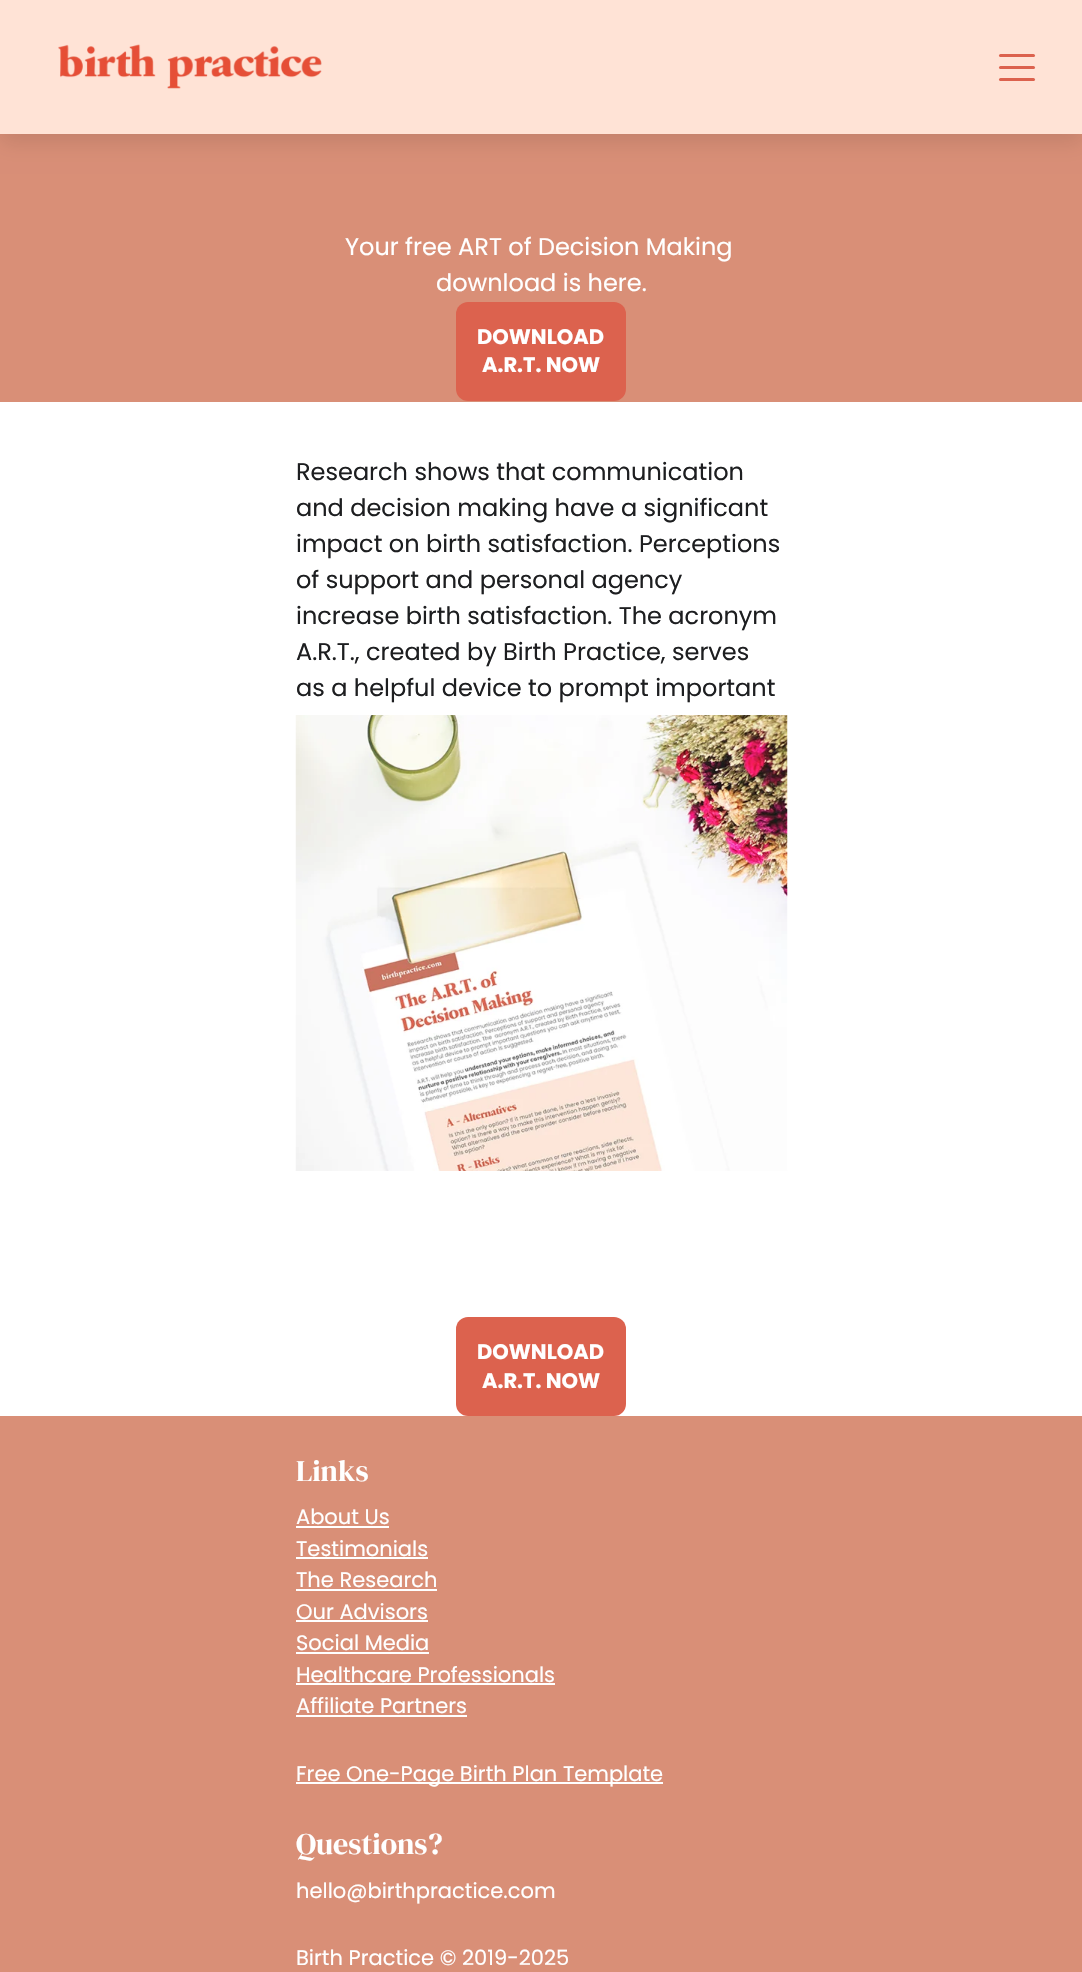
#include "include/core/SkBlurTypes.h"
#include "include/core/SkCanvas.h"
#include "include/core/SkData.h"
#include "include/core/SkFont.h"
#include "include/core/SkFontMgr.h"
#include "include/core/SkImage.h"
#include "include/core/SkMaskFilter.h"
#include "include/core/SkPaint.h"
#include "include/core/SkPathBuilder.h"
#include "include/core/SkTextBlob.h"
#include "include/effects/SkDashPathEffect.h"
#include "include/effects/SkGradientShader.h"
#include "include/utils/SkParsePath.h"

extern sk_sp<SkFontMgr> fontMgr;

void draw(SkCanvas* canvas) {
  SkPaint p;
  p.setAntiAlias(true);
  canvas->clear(SK_ColorWHITE);
  p.setColor(SkColorSetRGB(217, 143, 119));
  canvas->drawRect(SkRect::MakeLTRB(0, 134, 1082, 402), p);
  p.setColor(SkColorSetARGB(26, 0, 0, 0));
  p.setMaskFilter(SkMaskFilter::MakeBlur(kNormal_SkBlurStyle, 10.5f));
  canvas->drawRect(SkRect::MakeLTRB(0, 9, 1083, 143), p);
  p.setMaskFilter(nullptr);
  p.setColor(SkColorSetRGB(255, 227, 214));
  canvas->drawRect(SkRect::MakeLTRB(0, 0, 1082, 134), p);
  canvas->drawImageRect(SkImages::DeferredFromEncodedData(SkData::MakeFromFileName("images/1.png")), SkRect::MakeLTRB(58, 44, 322, 89), SkSamplingOptions());
  p.setColor(SkColorSetRGB(220, 98, 78));
  canvas->drawRoundRect(SkRect::MakeLTRB(999, 54, 1035, 57), 1.5f, 1.5f, p);
  canvas->drawRoundRect(SkRect::MakeLTRB(999, 66, 1035, 69), 1.5f, 1.5f, p);
  canvas->drawRoundRect(SkRect::MakeLTRB(999, 78, 1035, 81), 1.5f, 1.5f, p);
  canvas->drawRoundRect(SkRect::MakeLTRB(456, 302, 626, 401), 12, 12, p);
  canvas->drawImageRect(SkImages::DeferredFromEncodedData(SkData::MakeFromFileName("images/2.png")), SkRect::MakeLTRB(295, 715, 788, 1171), SkSamplingOptions());
  canvas->drawRoundRect(SkRect::MakeLTRB(456, 1317, 626, 1416), 12, 12, p);
  p.setColor(SkColorSetRGB(217, 143, 119));
  canvas->drawRect(SkRect::MakeLTRB(0, 1416, 1082, 1972), p);
  p.setColor(SK_ColorWHITE);
  canvas->drawRect(SkRect::MakeLTRB(296, 1526, 389, 1528), p);
  canvas->drawRect(SkRect::MakeLTRB(296, 1557, 428, 1559), p);
  canvas->drawRect(SkRect::MakeLTRB(296, 1589, 437, 1591), p);
  canvas->drawRect(SkRect::MakeLTRB(296, 1620, 428, 1622), p);
  canvas->drawRect(SkRect::MakeLTRB(296, 1652, 429, 1654), p);
  canvas->drawRect(SkRect::MakeLTRB(296, 1683, 555, 1685), p);
  canvas->drawRect(SkRect::MakeLTRB(296, 1715, 467, 1717), p);
  canvas->drawRect(SkRect::MakeLTRB(296, 1782, 663, 1784), p);
  SkFont font1(fontMgr->matchFamilyStyle("Poppins", SkFontStyle::Normal()), 24);
  font1.setSubpixel(true);
  canvas->drawString("Your free ART of Decision Making", 345, 255, font1, p);
  canvas->drawString("download is here.", 436, 291, font1, p);
  SkFont font2(fontMgr->matchFamilyStyle("Poppins", SkFontStyle::Bold()), 21);
  font2.setSubpixel(true);
  canvas->drawString("DOWNLOAD", 477, 344, font2, p);
  canvas->drawString("A.R.T. NOW", 482, 372, font2, p);
  p.setColor(SkColorSetRGB(29, 30, 32));
  canvas->drawString("Research shows that communication", 296, 480, font1, p);
  canvas->drawString("and decision making have a significant", 296, 516, font1, p);
  canvas->drawString("impact on birth satisfaction. Perceptions", 296, 552, font1, p);
  canvas->drawString("of support and personal agency", 296, 588, font1, p);
  canvas->drawString("increase birth satisfaction. The acronym", 296, 624, font1, p);
  canvas->drawString("A.R.T., created by Birth Practice, serves", 296, 660, font1, p);
  canvas->drawString("as a helpful device to prompt important", 296, 696, font1, p);
  p.setColor(SK_ColorWHITE);
  canvas->drawString("DOWNLOAD", 477, 1359, font2, p);
  canvas->drawString("A.R.T. NOW", 482, 1388, font2, p);
  SkFont font3(fontMgr->matchFamilyStyle("DM Serif Display", SkFontStyle::Normal()), 30);
  font3.setSubpixel(true);
  canvas->drawString("Links", 296, 1481, font3, p);
  SkFont font4(fontMgr->matchFamilyStyle("Poppins", SkFontStyle::Normal()), 21);
  font4.setSubpixel(true);
  canvas->drawString("About Us", 296, 1524, font4, p);
  canvas->drawString("Testimonials", 296, 1556, font4, p);
  canvas->drawString("The Research", 296, 1587, font4, p);
  canvas->drawString("Our Advisors", 296, 1619, font4, p);
  canvas->drawString("Social Media", 296, 1650, font4, p);
  canvas->drawString("Healthcare Professionals", 296, 1682, font4, p);
  canvas->drawString("Affiliate Partners", 296, 1713, font4, p);
  canvas->drawString("Free One-Page Birth Plan Template", 296, 1781, font4, p);
  canvas->drawString("Questions?", 296, 1854, font3, p);
  canvas->drawString("hello@birthpractice.com", 296, 1898, font4, p);
  canvas->drawString("Birth Practice © 2019-2025", 296, 1965, font4, p);
}
